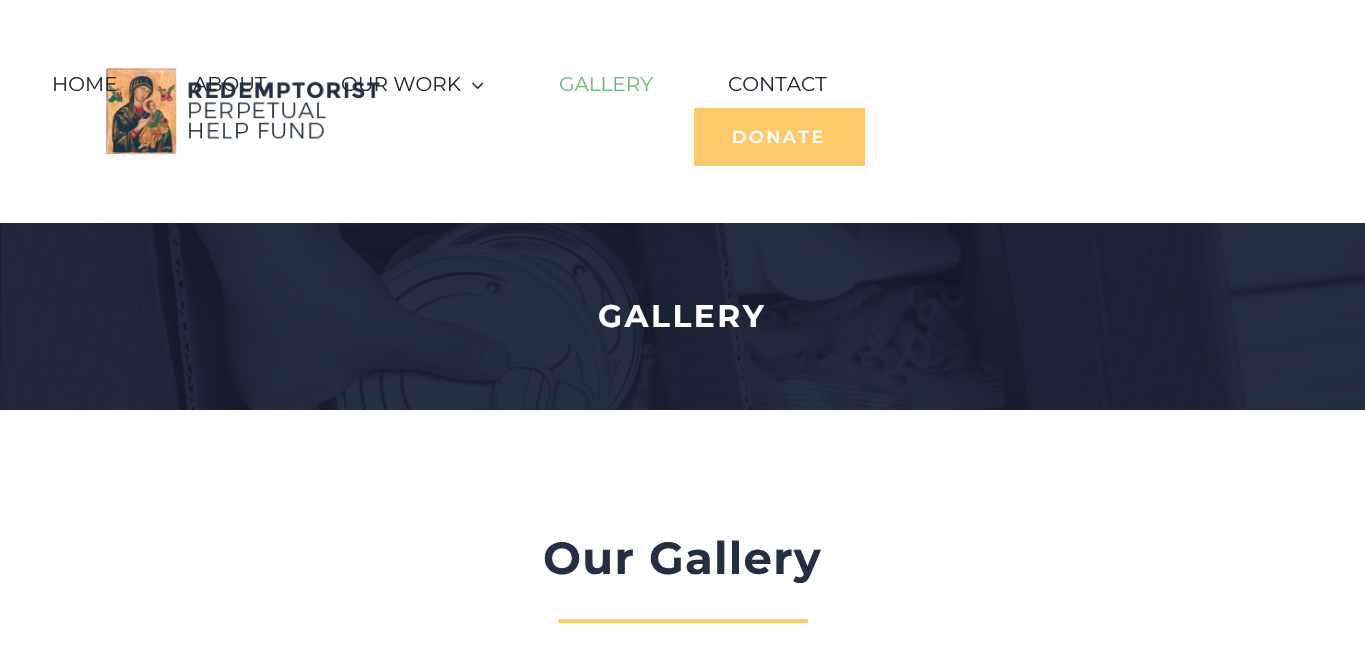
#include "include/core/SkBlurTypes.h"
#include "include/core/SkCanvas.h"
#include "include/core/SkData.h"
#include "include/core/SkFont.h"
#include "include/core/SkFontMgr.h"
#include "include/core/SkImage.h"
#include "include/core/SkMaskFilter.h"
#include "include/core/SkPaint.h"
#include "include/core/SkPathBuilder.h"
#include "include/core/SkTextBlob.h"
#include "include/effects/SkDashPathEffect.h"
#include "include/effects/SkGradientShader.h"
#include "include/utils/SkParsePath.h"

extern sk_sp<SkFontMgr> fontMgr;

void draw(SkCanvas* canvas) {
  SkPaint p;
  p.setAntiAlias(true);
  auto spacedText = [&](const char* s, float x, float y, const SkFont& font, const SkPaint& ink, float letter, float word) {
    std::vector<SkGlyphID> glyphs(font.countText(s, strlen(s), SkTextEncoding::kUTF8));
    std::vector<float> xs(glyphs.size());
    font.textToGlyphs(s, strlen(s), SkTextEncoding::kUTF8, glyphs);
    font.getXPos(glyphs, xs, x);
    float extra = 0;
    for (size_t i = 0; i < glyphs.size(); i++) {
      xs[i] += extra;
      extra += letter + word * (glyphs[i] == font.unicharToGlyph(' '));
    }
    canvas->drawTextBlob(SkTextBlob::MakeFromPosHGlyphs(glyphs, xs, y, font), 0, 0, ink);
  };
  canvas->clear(SK_ColorWHITE);
  canvas->drawImageRect(SkImages::DeferredFromEncodedData(SkData::MakeFromFileName("images/1.png")), SkRect::MakeLTRB(106, 68, 380, 155), SkSamplingOptions());
  canvas->drawImageRect(SkImages::DeferredFromEncodedData(SkData::MakeFromFileName("images/2.png")), SkRect::MakeLTRB(472, 82, 484, 90), SkSamplingOptions());
  p.setColor(SkColorSetRGB(254, 201, 107));
  canvas->drawRect(SkRect::MakeLTRB(694, 108, 865, 166), p);
  canvas->drawImageRect(SkImages::DeferredFromEncodedData(SkData::MakeFromFileName("images/3.png")), SkRect::MakeLTRB(0, 223, 1365, 410), SkSamplingOptions());
  canvas->drawRect(SkRect::MakeLTRB(558, 619, 808, 623), p);
  SkFont font1(fontMgr->matchFamilyStyle("Montserrat", SkFontStyle::Normal()), 20);
  font1.setSubpixel(true);
  p.setColor(SkColorSetRGB(33, 41, 52));
  canvas->drawString("HOME", 52, 91, font1, p);
  canvas->drawString("ABOUT", 193, 91, font1, p);
  canvas->drawString("OUR WORK", 341, 91, font1, p);
  p.setColor(SkColorSetRGB(101, 188, 123));
  canvas->drawString("GALLERY", 559, 91, font1, p);
  p.setColor(SkColorSetRGB(33, 41, 52));
  canvas->drawString("CONTACT", 728, 91, font1, p);
  SkFont font2(fontMgr->matchFamilyStyle("Montserrat", SkFontStyle(600, SkFontStyle::kNormal_Width, SkFontStyle::kUpright_Slant)), 17.5f);
  font2.setSubpixel(true);
  p.setColor(SK_ColorWHITE);
  spacedText("DONATE", 732, 143, font2, p, 2.5f, 0);
  SkFont font3(fontMgr->matchFamilyStyle("Montserrat", SkFontStyle::Bold()), 31.25f);
  font3.setSubpixel(true);
  spacedText("GALLERY", 598, 327, font3, p, 2.5f, 0);
  SkFont font4(fontMgr->matchFamilyStyle("Montserrat", SkFontStyle::Bold()), 45);
  font4.setSubpixel(true);
  p.setColor(SkColorSetRGB(38, 46, 68));
  spacedText("Our Gallery", 543, 574, font4, p, 1.25f, 0);
}
